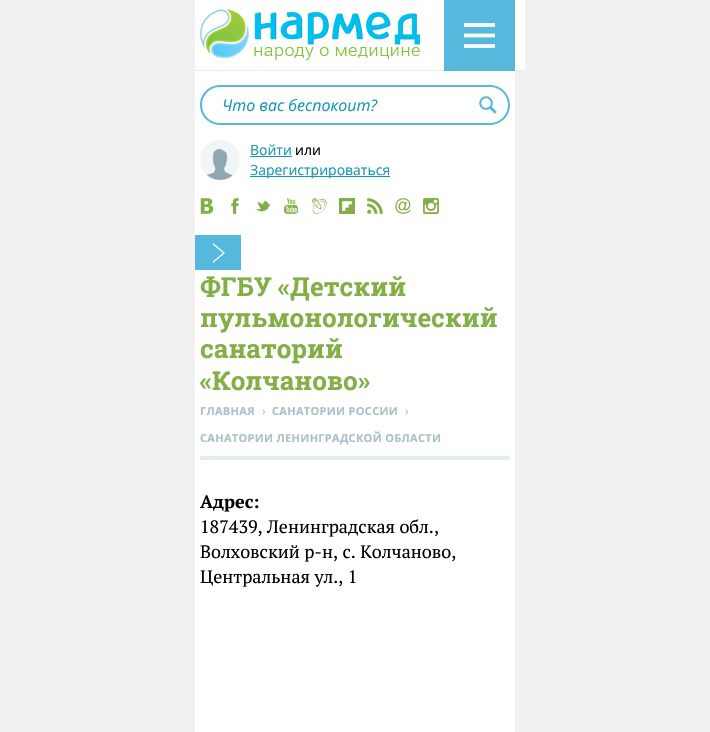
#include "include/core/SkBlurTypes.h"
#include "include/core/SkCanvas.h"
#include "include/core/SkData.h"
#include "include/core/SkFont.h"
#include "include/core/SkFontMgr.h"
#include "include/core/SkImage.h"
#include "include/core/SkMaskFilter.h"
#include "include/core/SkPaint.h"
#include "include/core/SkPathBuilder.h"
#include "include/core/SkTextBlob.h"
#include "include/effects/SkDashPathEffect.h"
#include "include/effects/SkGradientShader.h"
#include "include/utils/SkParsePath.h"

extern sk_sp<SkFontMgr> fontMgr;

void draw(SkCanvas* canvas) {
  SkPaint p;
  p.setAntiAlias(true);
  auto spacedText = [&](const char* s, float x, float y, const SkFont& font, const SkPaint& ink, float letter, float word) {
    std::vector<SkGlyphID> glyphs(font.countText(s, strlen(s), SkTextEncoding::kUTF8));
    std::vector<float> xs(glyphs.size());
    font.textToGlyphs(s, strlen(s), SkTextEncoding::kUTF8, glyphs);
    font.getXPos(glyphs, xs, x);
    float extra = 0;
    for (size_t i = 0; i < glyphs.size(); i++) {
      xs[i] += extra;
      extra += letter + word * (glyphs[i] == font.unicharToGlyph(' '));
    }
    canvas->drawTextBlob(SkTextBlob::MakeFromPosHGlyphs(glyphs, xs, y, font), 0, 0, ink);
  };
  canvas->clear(SkColorSetRGB(241, 241, 241));
  p.setColor(SK_ColorWHITE);
  canvas->drawRect(SkRect::MakeLTRB(195, 71, 515, 732), p);
  canvas->drawRect(SkRect::MakeLTRB(195, 0, 525, 70), p);
  p.setColor(SkColorSetRGB(226, 237, 241));
  canvas->drawRect(SkRect::MakeLTRB(195, 70, 525, 71), p);
  p.setColor(SkColorSetRGB(86, 184, 220));
  canvas->drawRect(SkRect::MakeLTRB(444, 0, 515, 71), p);
  canvas->drawImageRect(SkImages::DeferredFromEncodedData(SkData::MakeFromFileName("images/1.png")), SkRect::MakeLTRB(464, 23, 495, 48), SkSamplingOptions());
  canvas->drawImageRect(SkImages::DeferredFromEncodedData(SkData::MakeFromFileName("images/2.png")), SkRect::MakeLTRB(200, 9, 420, 60), SkSamplingOptions());
  p.setColor(SkColorSetRGB(91, 184, 218));
  canvas->drawPath(SkPathBuilder(SkPathFillType::kEvenOdd).moveTo(220, 85).lineTo(480, 85).cubicTo(491, 85, 500, 94, 500, 105).cubicTo(500, 116, 491, 125, 480, 125).lineTo(220, 125).cubicTo(209, 125, 200, 116, 200, 105).cubicTo(200, 94, 209, 85, 220, 85).close().moveTo(220, 87).lineTo(480, 87).cubicTo(491, 87, 500, 95, 500, 105).cubicTo(500, 115, 491, 123, 480, 123).lineTo(220, 123).cubicTo(210, 123, 202, 115, 202, 105).cubicTo(202, 95, 210, 87, 220, 87).close().detach(), p);
  p.setColor(SK_ColorWHITE);
  canvas->drawPath(SkPathBuilder().moveTo(470, 87).lineTo(490, 87).cubicTo(500, 87, 508, 95, 508, 105).cubicTo(508, 115, 500, 123, 490, 123).lineTo(470, 123).close().detach(), p);
  p.setColor(SkColorSetRGB(91, 184, 218));
  canvas->drawPath(SkPathBuilder(SkPathFillType::kEvenOdd).moveTo(470, 85).lineTo(490, 85).cubicTo(501, 85, 510, 94, 510, 105).cubicTo(510, 116, 501, 125, 490, 125).lineTo(470, 125).close().moveTo(470, 87).lineTo(490, 87).cubicTo(500, 87, 508, 95, 508, 105).cubicTo(508, 115, 500, 123, 490, 123).lineTo(470, 123).close().detach(), p);
  canvas->drawImageRect(SkImages::DeferredFromEncodedData(SkData::MakeFromFileName("images/3.png")), SkRect::MakeLTRB(479, 96, 497, 114), SkSamplingOptions());
  canvas->drawImageRect(SkImages::DeferredFromEncodedData(SkData::MakeFromFileName("images/4.png")), SkRect::MakeLTRB(200, 140, 240, 180), SkSamplingOptions());
  p.setColor(SkColorSetRGB(23, 150, 183));
  canvas->drawRect(SkRect::MakeLTRB(250, 156, 292, 157), p);
  canvas->drawRect(SkRect::MakeLTRB(250, 176, 390, 177), p);
  canvas->drawImageRect(SkImages::DeferredFromEncodedData(SkData::MakeFromFileName("images/5.png")), SkRect::MakeLTRB(200, 198, 214, 214), SkSamplingOptions());
  canvas->drawImageRect(SkImages::DeferredFromEncodedData(SkData::MakeFromFileName("images/6.png")), SkRect::MakeLTRB(231, 198, 239, 214), SkSamplingOptions());
  canvas->drawImageRect(SkImages::DeferredFromEncodedData(SkData::MakeFromFileName("images/7.png")), SkRect::MakeLTRB(255, 200, 271, 212), SkSamplingOptions());
  canvas->drawImageRect(SkImages::DeferredFromEncodedData(SkData::MakeFromFileName("images/8.png")), SkRect::MakeLTRB(284, 198, 298, 214), SkSamplingOptions());
  canvas->drawImageRect(SkImages::DeferredFromEncodedData(SkData::MakeFromFileName("images/9.png")), SkRect::MakeLTRB(311, 198, 327, 214), SkSamplingOptions());
  canvas->drawImageRect(SkImages::DeferredFromEncodedData(SkData::MakeFromFileName("images/10.png")), SkRect::MakeLTRB(339, 198, 355, 214), SkSamplingOptions());
  canvas->drawImageRect(SkImages::DeferredFromEncodedData(SkData::MakeFromFileName("images/11.png")), SkRect::MakeLTRB(367, 198, 383, 214), SkSamplingOptions());
  canvas->drawImageRect(SkImages::DeferredFromEncodedData(SkData::MakeFromFileName("images/12.png")), SkRect::MakeLTRB(395, 198, 411, 214), SkSamplingOptions());
  canvas->drawImageRect(SkImages::DeferredFromEncodedData(SkData::MakeFromFileName("images/13.png")), SkRect::MakeLTRB(423, 198, 439, 214), SkSamplingOptions());
  p.setColor(SkColorSetRGB(86, 184, 220));
  canvas->drawRect(SkRect::MakeLTRB(195, 235, 241, 270), p);
  p.setColor(SK_ColorWHITE);
  canvas->drawPath(SkPathBuilder().moveTo(213, 263).lineTo(213, 243).lineTo(225, 253).close().detach(), p);
  p.setColor(SkColorSetRGB(86, 184, 220));
  canvas->drawPath(SkPathBuilder().moveTo(211, 263).lineTo(211, 243).lineTo(223, 253).close().detach(), p);
  p.setColor(SkColorSetRGB(226, 237, 241));
  canvas->drawRect(SkRect::MakeLTRB(200, 456, 510, 460), p);
  SkFont font1(fontMgr->matchFamilyStyle("Open Sans", SkFontStyle::Italic()), 16);
  font1.setSubpixel(true);
  p.setColor(SkColorSetRGB(23, 150, 183));
  canvas->drawString("Что вас беспокоит?", 222, 111, font1, p);
  SkFont font2(fontMgr->matchFamilyStyle("Open Sans", SkFontStyle::Normal()), 14);
  font2.setSubpixel(true);
  canvas->drawString("Войти", 250, 155, font2, p);
  p.setColor(SK_ColorBLACK);
  canvas->drawString("или", 295, 155, font2, p);
  p.setColor(SkColorSetRGB(23, 150, 183));
  canvas->drawString("Зарегистрироваться", 250, 175, font2, p);
  SkFont font3(fontMgr->matchFamilyStyle("Roboto Slab", SkFontStyle::Bold()), 26);
  font3.setSubpixel(true);
  p.setColor(SkColorSetRGB(131, 175, 71));
  canvas->drawString("ФГБУ «Детский", 200, 296, font3, p);
  canvas->drawString("пульмонологический", 200, 327, font3, p);
  canvas->drawString("санаторий", 200, 358, font3, p);
  canvas->drawString("«Колчаново»", 200, 390, font3, p);
  SkFont font4(fontMgr->matchFamilyStyle("Open Sans", SkFontStyle::Bold()), 11);
  font4.setSubpixel(true);
  p.setColor(SkColorSetRGB(170, 193, 202));
  spacedText("ГЛАВНАЯ", 200, 415, font4, p, 0.3f, 0);
  SkFont font5(fontMgr->matchFamilyStyle("Open Sans", SkFontStyle::Normal()), 12);
  font5.setSubpixel(true);
  canvas->drawString("›", 262, 415, font5, p);
  spacedText("САНАТОРИИ РОССИИ", 272, 415, font4, p, 0.3f, 0);
  canvas->drawString("›", 405, 415, font5, p);
  spacedText("CАНАТОРИИ ЛЕНИНГРАДСКОЙ ОБЛАСТИ", 200, 442, font4, p, 0.3f, 0);
  SkFont font6(fontMgr->matchFamilyStyle("PT Serif", SkFontStyle::Bold()), 18);
  font6.setSubpixel(true);
  p.setColor(SK_ColorBLACK);
  canvas->drawString("Адрес:", 200, 508, font6, p);
  SkFont font7(fontMgr->matchFamilyStyle("PT Serif", SkFontStyle::Normal()), 18);
  font7.setSubpixel(true);
  canvas->drawString("187439, Ленинградская обл.,", 200, 533, font7, p);
  canvas->drawString("Волховский р-н, с. Колчаново,", 200, 558, font7, p);
  canvas->drawString("Центральная ул., 1", 200, 583, font7, p);
}
